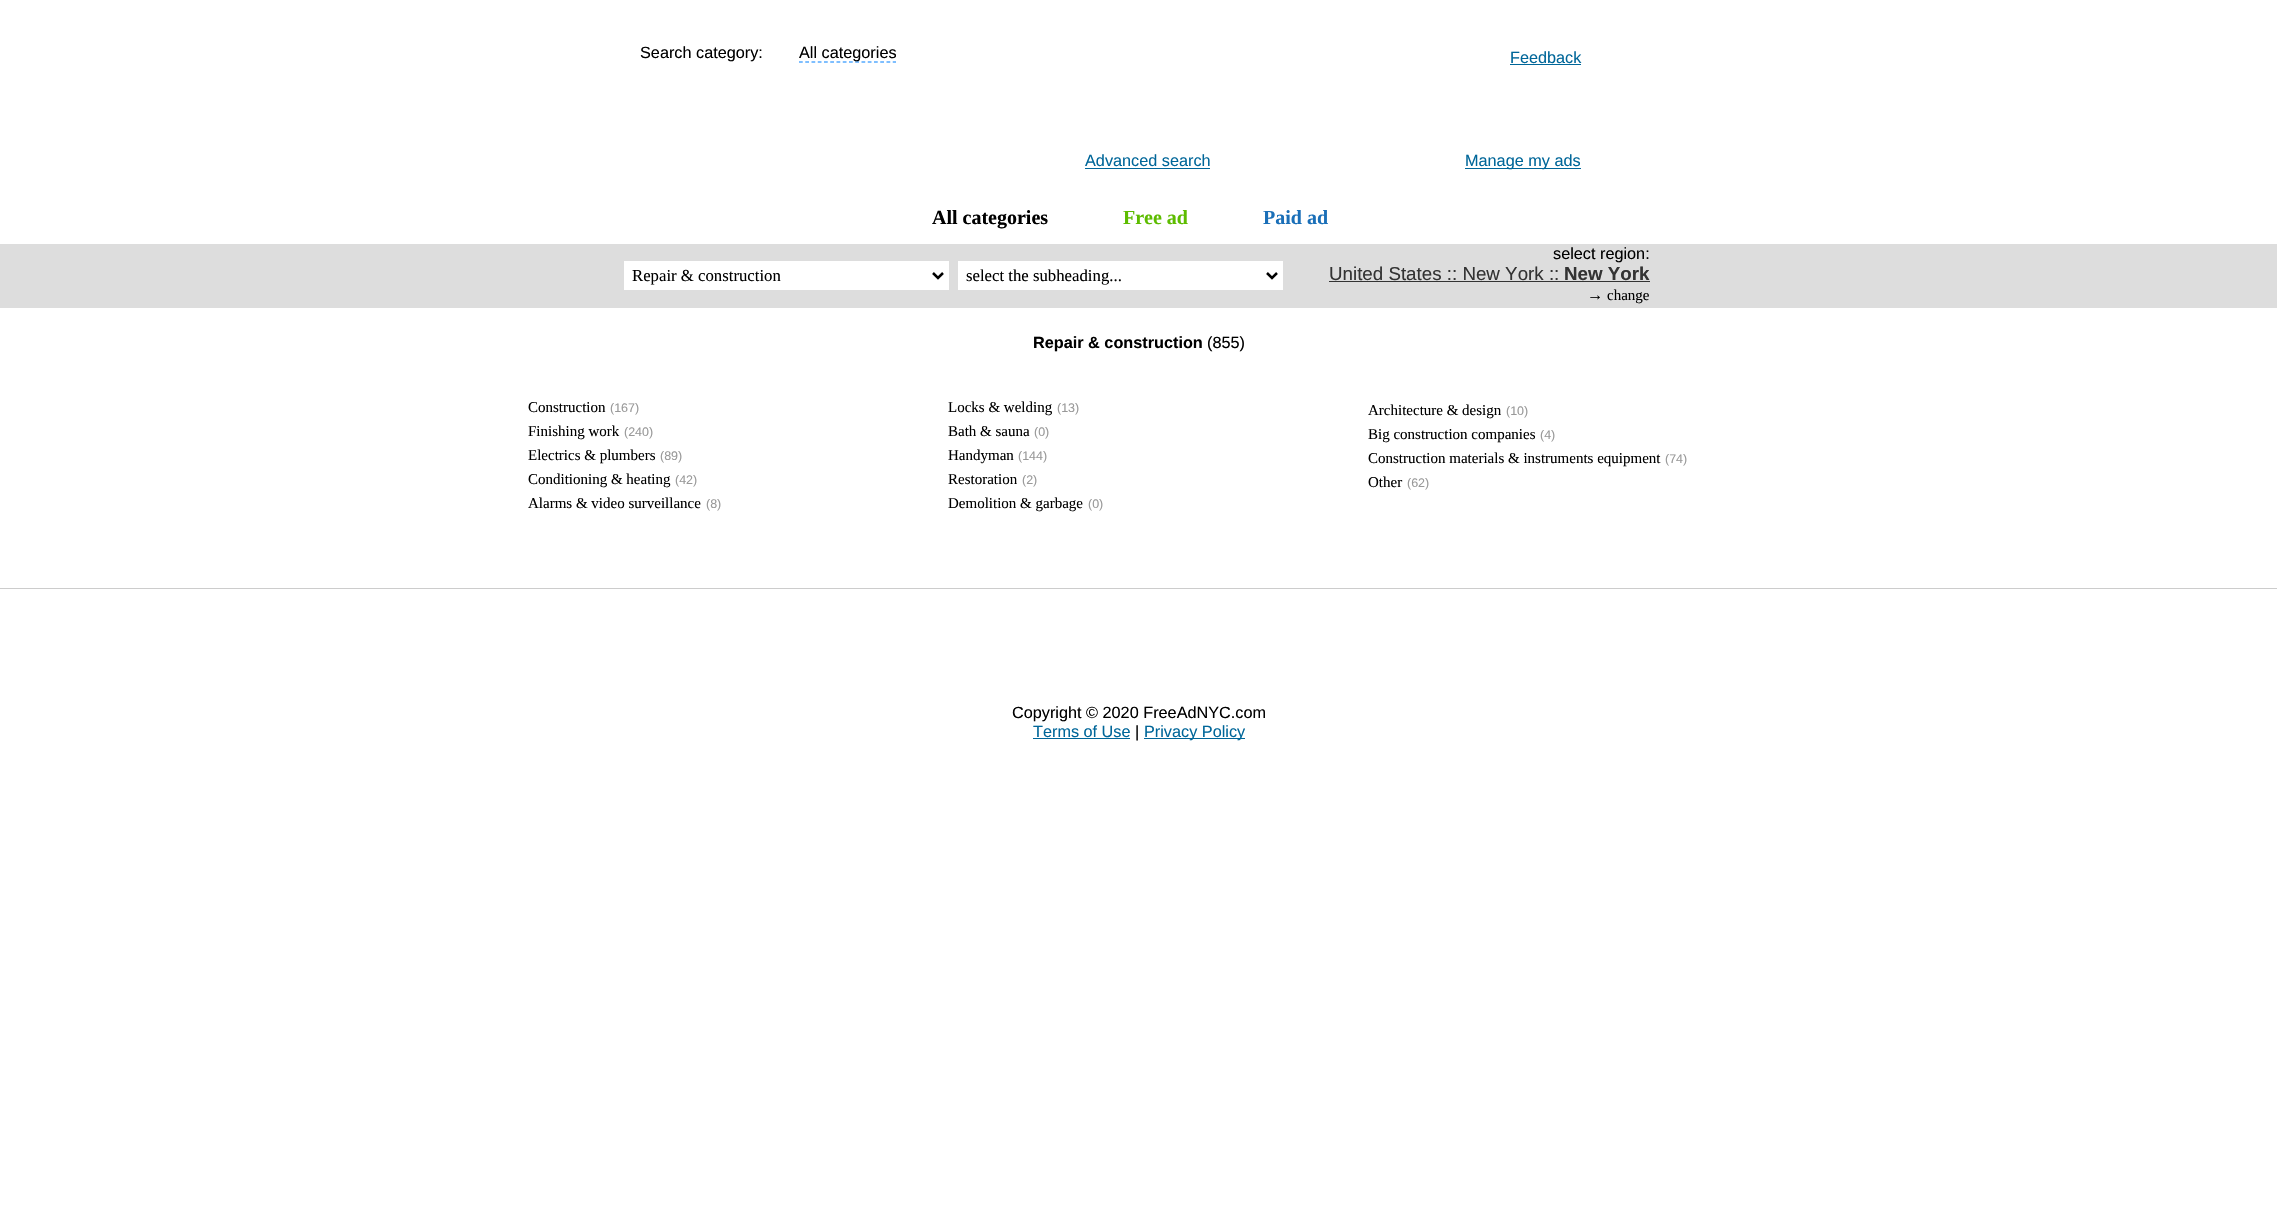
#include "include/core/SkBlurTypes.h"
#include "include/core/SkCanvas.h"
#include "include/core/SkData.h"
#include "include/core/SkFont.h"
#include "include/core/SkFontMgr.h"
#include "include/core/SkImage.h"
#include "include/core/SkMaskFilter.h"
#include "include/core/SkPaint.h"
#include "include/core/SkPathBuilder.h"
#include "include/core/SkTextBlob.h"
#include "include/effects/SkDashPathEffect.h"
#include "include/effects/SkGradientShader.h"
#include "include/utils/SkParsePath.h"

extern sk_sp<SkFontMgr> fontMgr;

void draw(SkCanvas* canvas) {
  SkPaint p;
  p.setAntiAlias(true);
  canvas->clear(SK_ColorWHITE);
  p.setStyle(SkPaint::kStroke_Style);
  p.setStrokeWidth(1.2f);
  p.setColor(SkColorSetRGB(0, 128, 255));
  p.setPathEffect(SkDashPathEffect::Make({{3.75f, 2.5f}}, 0));
  canvas->drawPath(SkPathBuilder().moveTo(799, 62).lineTo(896, 62).detach(), p);
  p.setPathEffect(nullptr);
  p.setStyle(SkPaint::kFill_Style);
  p.setColor(SkColorSetRGB(0, 102, 153));
  canvas->drawRect(SkRect::MakeLTRB(1510, 64, 1581, 65), p);
  canvas->drawRect(SkRect::MakeLTRB(1085, 168, 1210, 169), p);
  canvas->drawRect(SkRect::MakeLTRB(1465, 168, 1581, 169), p);
  p.setColor(SkColorSetRGB(221, 221, 221));
  canvas->drawRect(SkRect::MakeLTRB(0, 244, 2277, 308), p);
  p.setColor(SK_ColorWHITE);
  canvas->drawRect(SkRect::MakeLTRB(624, 261, 949, 290), p);
  p.setStyle(SkPaint::kStroke_Style);
  p.setStrokeWidth(2.5f);
  p.setColor(SK_ColorBLACK);
  canvas->drawPath(SkPathBuilder().moveTo(933, 273).lineTo(938, 278).lineTo(943, 273).detach(), p);
  p.setStyle(SkPaint::kFill_Style);
  p.setColor(SK_ColorWHITE);
  canvas->drawRect(SkRect::MakeLTRB(958, 261, 1283, 290), p);
  p.setStyle(SkPaint::kStroke_Style);
  p.setColor(SK_ColorBLACK);
  canvas->drawPath(SkPathBuilder().moveTo(1267, 273).lineTo(1272, 278).lineTo(1277, 273).detach(), p);
  p.setStyle(SkPaint::kFill_Style);
  p.setColor(SkColorSetRGB(51, 51, 51));
  canvas->drawRect(SkRect::MakeLTRB(1329, 281, 1650, 282), p);
  p.setColor(SkColorSetRGB(204, 204, 204));
  canvas->drawRect(SkRect::MakeLTRB(0, 588, 2277, 589), p);
  p.setColor(SkColorSetRGB(0, 102, 153));
  canvas->drawRect(SkRect::MakeLTRB(1033, 738, 1130, 739), p);
  canvas->drawRect(SkRect::MakeLTRB(1144, 738, 1245, 739), p);
  SkFont font1(fontMgr->matchFamilyStyle("Liberation Sans", SkFontStyle::Normal()), 16.25f);
  font1.setSubpixel(true);
  p.setColor(SK_ColorBLACK);
  canvas->drawString("Search category:", 640, 58, font1, p);
  canvas->drawString("All categories", 799, 58, font1, p);
  p.setColor(SkColorSetRGB(0, 102, 153));
  canvas->drawString("Feedback", 1510, 63, font1, p);
  canvas->drawString("Advanced search", 1085, 166, font1, p);
  canvas->drawString("Manage my ads", 1465, 166, font1, p);
  SkFont font2(fontMgr->matchFamilyStyle("Liberation Serif", SkFontStyle::Bold()), 20);
  font2.setSubpixel(true);
  p.setColor(SK_ColorBLACK);
  canvas->drawString("All categories", 932, 224, font2, p);
  p.setColor(SkColorSetRGB(93, 188, 0));
  canvas->drawString("Free ad", 1123, 224, font2, p);
  p.setColor(SkColorSetRGB(26, 111, 184));
  canvas->drawString("Paid ad", 1263, 224, font2, p);
  SkFont font3(fontMgr->matchFamilyStyle("Liberation Serif", SkFontStyle::Normal()), 16.75f);
  font3.setSubpixel(true);
  p.setColor(SK_ColorBLACK);
  canvas->drawString("Repair & construction", 632, 281, font3, p);
  canvas->drawString("select the subheading...", 966, 281, font3, p);
  canvas->drawString("select region:", 1553, 259, font1, p);
  SkFont font4(fontMgr->matchFamilyStyle("Liberation Sans", SkFontStyle::Normal()), 18.75f);
  font4.setSubpixel(true);
  p.setColor(SkColorSetRGB(51, 51, 51));
  canvas->drawString("United States :: New York ::", 1329, 280, font4, p);
  SkFont font5(fontMgr->matchFamilyStyle("Liberation Sans", SkFontStyle::Bold()), 18.75f);
  font5.setSubpixel(true);
  canvas->drawString("New York", 1564, 280, font5, p);
  p.setColor(SK_ColorBLACK);
  canvas->drawString("→", 1587, 300, font1, p);
  SkFont font6(fontMgr->matchFamilyStyle("Liberation Serif", SkFontStyle::Normal()), 15);
  font6.setSubpixel(true);
  canvas->drawString("change", 1607, 300, font6, p);
  SkFont font7(fontMgr->matchFamilyStyle("Liberation Sans", SkFontStyle::Bold()), 16.25f);
  font7.setSubpixel(true);
  canvas->drawString("Repair & construction", 1033, 348, font7, p);
  canvas->drawString("(855)", 1207, 348, font1, p);
  canvas->drawString("Construction", 528, 412, font6, p);
  SkFont font8(fontMgr->matchFamilyStyle("Liberation Sans", SkFontStyle::Normal()), 12.5f);
  font8.setSubpixel(true);
  p.setColor(SkColorSetRGB(153, 153, 153));
  canvas->drawString("(167)", 610, 412, font8, p);
  p.setColor(SK_ColorBLACK);
  canvas->drawString("Finishing work", 528, 436, font6, p);
  p.setColor(SkColorSetRGB(153, 153, 153));
  canvas->drawString("(240)", 624, 436, font8, p);
  p.setColor(SK_ColorBLACK);
  canvas->drawString("Electrics & plumbers", 528, 460, font6, p);
  p.setColor(SkColorSetRGB(153, 153, 153));
  canvas->drawString("(89)", 660, 460, font8, p);
  p.setColor(SK_ColorBLACK);
  canvas->drawString("Conditioning & heating", 528, 484, font6, p);
  p.setColor(SkColorSetRGB(153, 153, 153));
  canvas->drawString("(42)", 675, 484, font8, p);
  p.setColor(SK_ColorBLACK);
  canvas->drawString("Alarms & video surveillance", 528, 508, font6, p);
  p.setColor(SkColorSetRGB(153, 153, 153));
  canvas->drawString("(8)", 706, 508, font8, p);
  p.setColor(SK_ColorBLACK);
  canvas->drawString("Locks & welding", 948, 412, font6, p);
  p.setColor(SkColorSetRGB(153, 153, 153));
  canvas->drawString("(13)", 1057, 412, font8, p);
  p.setColor(SK_ColorBLACK);
  canvas->drawString("Bath & sauna", 948, 436, font6, p);
  p.setColor(SkColorSetRGB(153, 153, 153));
  canvas->drawString("(0)", 1034, 436, font8, p);
  p.setColor(SK_ColorBLACK);
  canvas->drawString("Handyman", 948, 460, font6, p);
  p.setColor(SkColorSetRGB(153, 153, 153));
  canvas->drawString("(144)", 1018, 460, font8, p);
  p.setColor(SK_ColorBLACK);
  canvas->drawString("Restoration", 948, 484, font6, p);
  p.setColor(SkColorSetRGB(153, 153, 153));
  canvas->drawString("(2)", 1022, 484, font8, p);
  p.setColor(SK_ColorBLACK);
  canvas->drawString("Demolition & garbage", 948, 508, font6, p);
  p.setColor(SkColorSetRGB(153, 153, 153));
  canvas->drawString("(0)", 1088, 508, font8, p);
  p.setColor(SK_ColorBLACK);
  canvas->drawString("Architecture & design", 1368, 415, font6, p);
  p.setColor(SkColorSetRGB(153, 153, 153));
  canvas->drawString("(10)", 1506, 415, font8, p);
  p.setColor(SK_ColorBLACK);
  canvas->drawString("Big construction companies", 1368, 439, font6, p);
  p.setColor(SkColorSetRGB(153, 153, 153));
  canvas->drawString("(4)", 1540, 439, font8, p);
  p.setColor(SK_ColorBLACK);
  canvas->drawString("Construction materials & instruments equipment", 1368, 463, font6, p);
  p.setColor(SkColorSetRGB(153, 153, 153));
  canvas->drawString("(74)", 1665, 463, font8, p);
  p.setColor(SK_ColorBLACK);
  canvas->drawString("Other", 1368, 487, font6, p);
  p.setColor(SkColorSetRGB(153, 153, 153));
  canvas->drawString("(62)", 1407, 487, font8, p);
  p.setColor(SK_ColorBLACK);
  canvas->drawString("Copyright © 2020 FreeAdNYC.com", 1012, 718, font1, p);
  p.setColor(SkColorSetRGB(0, 102, 153));
  canvas->drawString("Terms of Use", 1033, 737, font1, p);
  p.setColor(SK_ColorBLACK);
  canvas->drawString("|", 1135, 737, font1, p);
  p.setColor(SkColorSetRGB(0, 102, 153));
  canvas->drawString("Privacy Policy", 1144, 737, font1, p);
}
